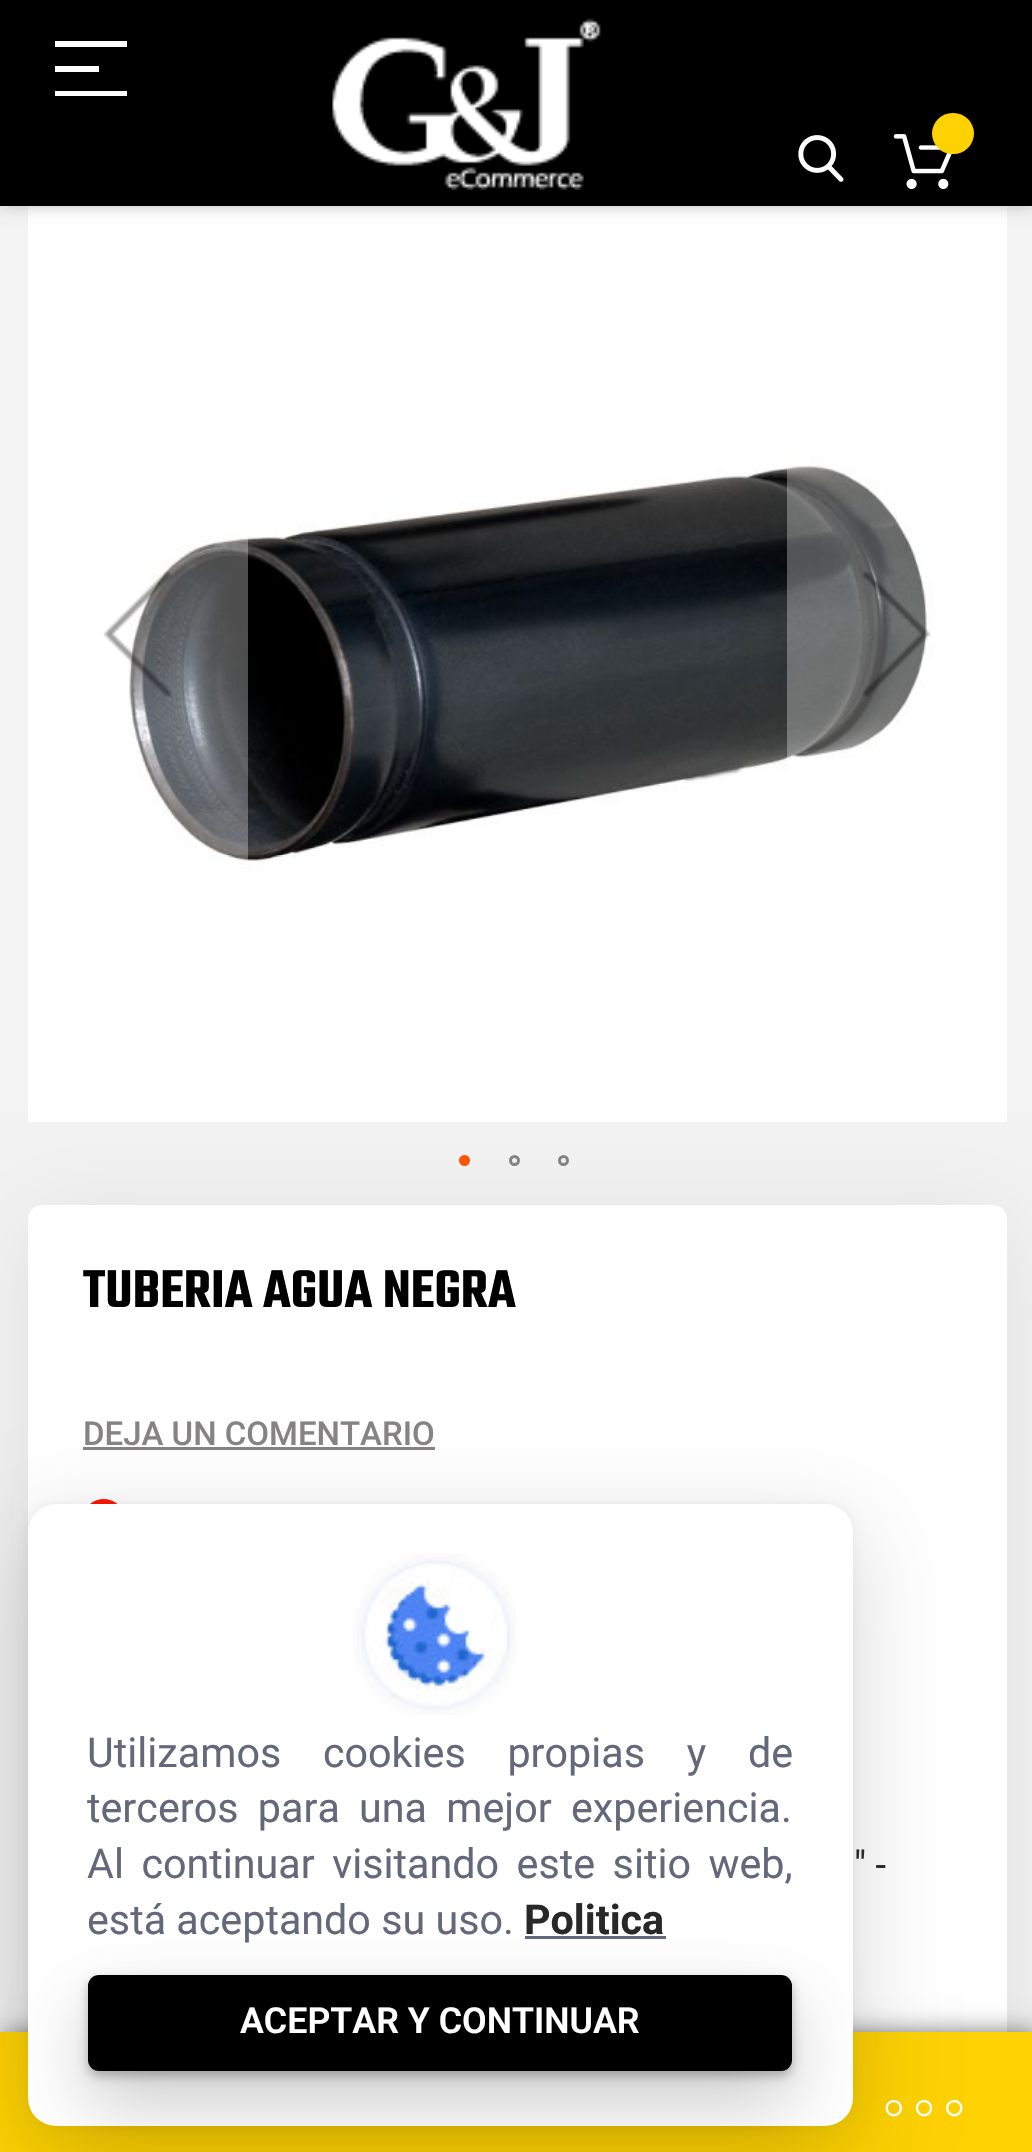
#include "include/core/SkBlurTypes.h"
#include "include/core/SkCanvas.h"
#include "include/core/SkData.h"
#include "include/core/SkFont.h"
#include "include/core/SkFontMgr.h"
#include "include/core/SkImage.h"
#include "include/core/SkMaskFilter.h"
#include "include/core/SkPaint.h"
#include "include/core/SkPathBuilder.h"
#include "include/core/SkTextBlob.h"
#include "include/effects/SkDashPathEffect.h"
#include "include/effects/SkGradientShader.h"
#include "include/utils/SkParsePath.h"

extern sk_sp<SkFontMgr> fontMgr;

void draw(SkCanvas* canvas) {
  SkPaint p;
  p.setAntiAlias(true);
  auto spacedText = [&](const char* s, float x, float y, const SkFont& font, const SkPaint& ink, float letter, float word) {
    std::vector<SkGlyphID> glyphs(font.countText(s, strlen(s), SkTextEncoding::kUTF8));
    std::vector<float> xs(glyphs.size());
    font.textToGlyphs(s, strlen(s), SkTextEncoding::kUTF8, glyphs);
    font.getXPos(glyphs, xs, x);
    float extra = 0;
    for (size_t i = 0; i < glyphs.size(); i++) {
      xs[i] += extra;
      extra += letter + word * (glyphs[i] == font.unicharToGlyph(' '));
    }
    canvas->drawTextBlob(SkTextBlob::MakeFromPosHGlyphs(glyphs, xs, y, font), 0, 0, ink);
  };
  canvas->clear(SkColorSetRGB(243, 243, 243));
  canvas->drawImageRect(SkImages::DeferredFromEncodedData(SkData::MakeFromFileName("images/4.png")), SkRect::MakeLTRB(28, 206, 1007, 1122), SkSamplingOptions());
  p.setColor(SkColorSetRGB(189, 189, 189));
  p.setMaskFilter(SkMaskFilter::MakeBlur(kNormal_SkBlurStyle, 7));
  canvas->drawRect(SkRect::MakeLTRB(0, 0, 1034, 206), p);
  p.setMaskFilter(nullptr);
  p.setColor(SK_ColorBLACK);
  canvas->drawRect(SkRect::MakeLTRB(0, 0, 1032, 206), p);
  p.setColor(SK_ColorWHITE);
  canvas->drawRect(SkRect::MakeLTRB(55, 41, 127, 47), p);
  canvas->drawRect(SkRect::MakeLTRB(55, 91, 127, 96), p);
  canvas->drawRect(SkRect::MakeLTRB(55, 66, 99, 72), p);
  canvas->drawImageRect(SkImages::DeferredFromEncodedData(SkData::MakeFromFileName("images/1.png")), SkRect::MakeLTRB(332, 18, 601, 190), SkSamplingOptions());
  canvas->drawImageRect(SkImages::DeferredFromEncodedData(SkData::MakeFromFileName("images/2.png")), SkRect::MakeLTRB(798, 135, 844, 182), SkSamplingOptions());
  canvas->drawImageRect(SkImages::DeferredFromEncodedData(SkData::MakeFromFileName("images/3.png")), SkRect::MakeLTRB(893, 134, 952, 190), SkSamplingOptions());
  p.setColor(SkColorSetRGB(253, 209, 2));
  canvas->drawRoundRect(SkRect::MakeLTRB(932, 113, 974, 154), 20.5f, 20.5f, p);
  p.setColor(SkColorSetARGB(77, 255, 255, 255));
  canvas->drawRect(SkRect::MakeLTRB(128, 537, 248, 861), p);
  canvas->drawImageRect(SkImages::DeferredFromEncodedData(SkData::MakeFromFileName("images/5.png")), SkRect::MakeLTRB(103, 570, 172, 697), SkSamplingOptions());
  canvas->drawRect(SkRect::MakeLTRB(787, 466, 927, 759), p);
  canvas->drawImageRect(SkImages::DeferredFromEncodedData(SkData::MakeFromFileName("images/6.png")), SkRect::MakeLTRB(862, 571, 931, 697), SkSamplingOptions());
  p.setColor(SkColorSetRGB(255, 85, 1));
  canvas->drawCircle(464.5f, 1160.5f, 4, p);
  p.setStyle(SkPaint::kStroke_Style);
  p.setStrokeWidth(3);
  canvas->drawCircle(464.5f, 1160.5f, 4, p);
  p.setColor(SkColorSetRGB(133, 133, 133));
  canvas->drawCircle(514.5f, 1160.5f, 4, p);
  canvas->drawCircle(563.5f, 1160.5f, 4, p);
  p.setStyle(SkPaint::kFill_Style);
  p.setColor(SkColorSetARGB(20, 0, 0, 0));
  p.setMaskFilter(SkMaskFilter::MakeBlur(kNormal_SkBlurStyle, 47));
  canvas->drawRoundRect(SkRect::MakeLTRB(28, 1216, 1007, 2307), 14, 14, p);
  p.setMaskFilter(nullptr);
  p.setColor(SK_ColorWHITE);
  canvas->drawRoundRect(SkRect::MakeLTRB(28, 1205, 1007, 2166), 14, 14, p);
  p.setColor(SkColorSetRGB(133, 131, 131));
  canvas->drawRect(SkRect::MakeLTRB(83, 1447, 435, 1450), p);
  canvas->drawImageRect(SkImages::DeferredFromEncodedData(SkData::MakeFromFileName("images/7.png")), SkRect::MakeLTRB(90, 1499, 118, 1504), SkSamplingOptions());
  p.setColor(SkColorSetRGB(51, 51, 51));
  p.setMaskFilter(SkMaskFilter::MakeBlur(kNormal_SkBlurStyle, 14));
  canvas->drawRect(SkRect::MakeLTRB(6, 2038, 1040, 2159), p);
  p.setMaskFilter(nullptr);
  p.setColor(SkColorSetRGB(253, 209, 2));
  canvas->drawRect(SkRect::MakeLTRB(0, 2032, 1032, 2152), p);
  p.setColor(SkColorSetARGB(13, 0, 0, 0));
  p.setMaskFilter(SkMaskFilter::MakeBlur(kNormal_SkBlurStyle, 4));
  canvas->drawRoundRect(SkRect::MakeLTRB(28, 1504, 853, 2126), 28, 28, p);
  p.setMaskFilter(nullptr);
  canvas->drawImageRect(SkImages::DeferredFromEncodedData(SkData::MakeFromFileName("images/9.png")), SkRect::MakeLTRB(885, 2099, 902, 2117), SkSamplingOptions());
  canvas->drawImageRect(SkImages::DeferredFromEncodedData(SkData::MakeFromFileName("images/10.png")), SkRect::MakeLTRB(915, 2099, 933, 2117), SkSamplingOptions());
  canvas->drawImageRect(SkImages::DeferredFromEncodedData(SkData::MakeFromFileName("images/11.png")), SkRect::MakeLTRB(946, 2099, 963, 2117), SkSamplingOptions());
  p.setColor(SkColorSetARGB(38, 0, 0, 0));
  p.setMaskFilter(SkMaskFilter::MakeBlur(kNormal_SkBlurStyle, 45.5f));
  canvas->drawRoundRect(SkRect::MakeLTRB(25, 1529, 855, 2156), 30, 30, p);
  p.setMaskFilter(nullptr);
  p.setColor(SK_ColorWHITE);
  canvas->drawRoundRect(SkRect::MakeLTRB(28, 1504, 853, 2126), 28, 28, p);
  canvas->drawImageRect(SkImages::DeferredFromEncodedData(SkData::MakeFromFileName("images/8.png")), SkRect::MakeLTRB(353, 1553, 516, 1715), SkSamplingOptions());
  p.setColor(SkColorSetRGB(100, 104, 122));
  canvas->drawRect(SkRect::MakeLTRB(525, 1936, 666, 1939), p);
  p.setColor(SkColorSetARGB(51, 0, 0, 0));
  p.setMaskFilter(SkMaskFilter::MakeBlur(kNormal_SkBlurStyle, 36));
  canvas->drawRoundRect(SkRect::MakeLTRB(88, 2008, 792, 2104), 11, 11, p);
  p.setMaskFilter(nullptr);
  p.setColor(SkColorSetARGB(69, 0, 0, 0));
  p.setMaskFilter(SkMaskFilter::MakeBlur(kNormal_SkBlurStyle, 5.5f));
  canvas->drawRoundRect(SkRect::MakeLTRB(88, 1980, 792, 2076), 11, 11, p);
  p.setMaskFilter(nullptr);
  p.setColor(SK_ColorBLACK);
  canvas->drawRoundRect(SkRect::MakeLTRB(88, 1975, 792, 2071), 11, 11, p);
  SkFont font1(fontMgr->matchFamilyStyle("Teko", SkFontStyle(600, SkFontStyle::kNormal_Width, SkFontStyle::kUpright_Slant)), 57.75f);
  font1.setSubpixel(true);
  canvas->drawString("TUBERIA AGUA NEGRA", 83, 1307, font1, p);
  SkFont font2(fontMgr->matchFamilyStyle("Roboto", SkFontStyle(500, SkFontStyle::kNormal_Width, SkFontStyle::kUpright_Slant)), 33);
  font2.setSubpixel(true);
  p.setColor(SkColorSetRGB(133, 131, 131));
  canvas->drawString("DEJA UN COMENTARIO", 83, 1445, font2, p);
  SkFont font3(fontMgr->matchFamilyStyle("Roboto", SkFontStyle::Normal()), 38);
  font3.setSubpixel(true);
  p.setColor(SkColorSetRGB(40, 40, 40));
  canvas->drawString("\" -", 854, 1878, font3, p);
  SkFont font4(fontMgr->matchFamilyStyle("Roboto", SkFontStyle::Normal()), 41.25f);
  font4.setSubpixel(true);
  p.setColor(SkColorSetRGB(100, 104, 122));
  spacedText("Utilizamos cookies propias y de", 87, 1767, font4, p, 0, 31.5f);
  spacedText("terceros para una mejor experiencia.", 87, 1822, font4, p, 0, 9);
  spacedText("Al continuar visitando este sitio web,", 87, 1878, font4, p, 0, 7.25f);
  canvas->drawString("está aceptando su uso.", 87, 1934, font4, p);
  SkFont font5(fontMgr->matchFamilyStyle("Roboto", SkFontStyle::Bold()), 41.25f);
  font5.setSubpixel(true);
  p.setColor(SkColorSetRGB(40, 40, 40));
  canvas->drawString("Politica", 524, 1934, font5, p);
  SkFont font6(fontMgr->matchFamilyStyle("Roboto", SkFontStyle(600, SkFontStyle::kNormal_Width, SkFontStyle::kUpright_Slant)), 35.75f);
  font6.setSubpixel(true);
  p.setColor(SK_ColorWHITE);
  canvas->drawString("ACEPTAR Y CONTINUAR", 240, 2033, font6, p);
}
